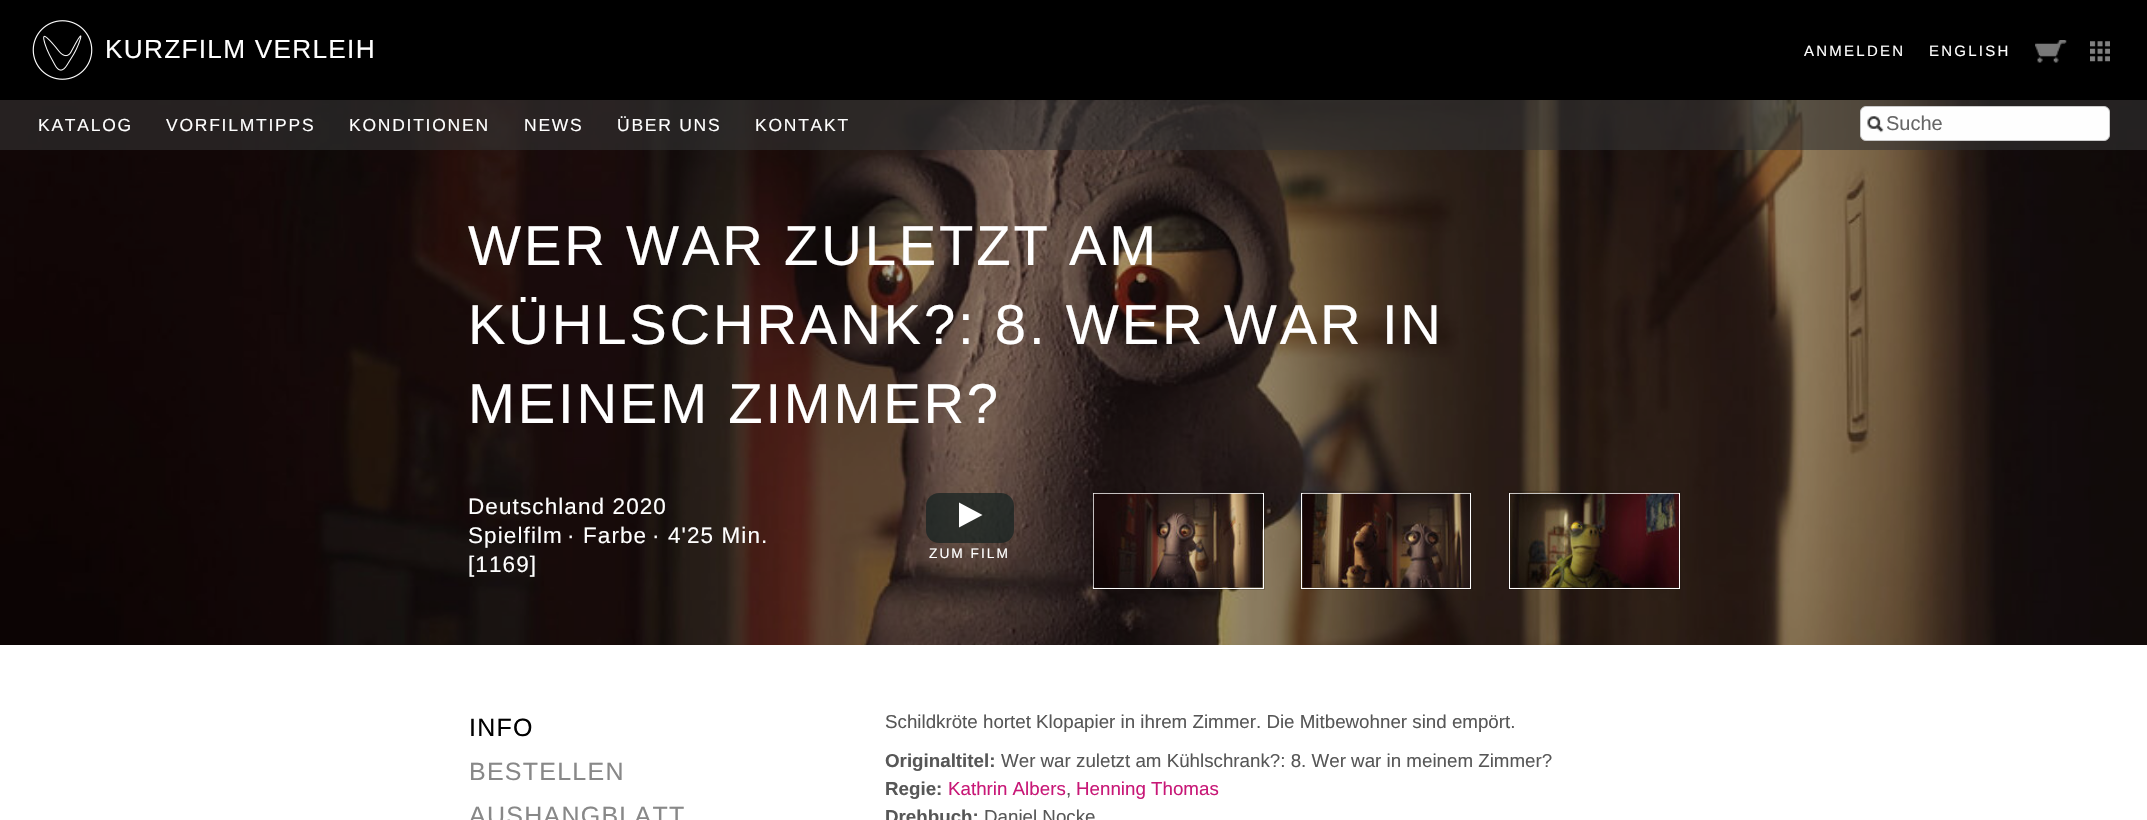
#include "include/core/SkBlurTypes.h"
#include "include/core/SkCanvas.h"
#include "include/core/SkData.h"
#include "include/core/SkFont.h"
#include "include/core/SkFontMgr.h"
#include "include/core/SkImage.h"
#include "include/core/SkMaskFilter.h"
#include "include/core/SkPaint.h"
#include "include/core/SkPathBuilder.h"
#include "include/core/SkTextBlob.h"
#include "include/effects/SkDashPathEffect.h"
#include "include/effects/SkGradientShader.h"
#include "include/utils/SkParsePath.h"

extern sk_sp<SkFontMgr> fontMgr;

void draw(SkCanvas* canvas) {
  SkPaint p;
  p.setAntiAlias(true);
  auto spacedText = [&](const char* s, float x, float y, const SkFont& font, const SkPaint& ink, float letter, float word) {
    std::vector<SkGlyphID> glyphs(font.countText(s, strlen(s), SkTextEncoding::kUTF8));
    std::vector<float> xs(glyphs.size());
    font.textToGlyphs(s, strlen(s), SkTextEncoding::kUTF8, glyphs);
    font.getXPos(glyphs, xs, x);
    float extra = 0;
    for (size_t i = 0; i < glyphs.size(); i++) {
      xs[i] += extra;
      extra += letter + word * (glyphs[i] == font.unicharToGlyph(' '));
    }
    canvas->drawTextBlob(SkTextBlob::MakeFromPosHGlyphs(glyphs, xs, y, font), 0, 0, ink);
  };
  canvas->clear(SK_ColorWHITE);
  p.setColor(SK_ColorBLACK);
  canvas->drawRect(SkRect::MakeLTRB(0, 0, 2147, 100), p);
  canvas->drawImageRect(SkImages::DeferredFromEncodedData(SkData::MakeFromFileName("images/1.png")), SkRect::MakeLTRB(32, 20, 93, 80), SkSamplingOptions());
  canvas->drawImageRect(SkImages::DeferredFromEncodedData(SkData::MakeFromFileName("images/2.png")), SkRect::MakeLTRB(2035, 40, 2067, 63), SkSamplingOptions());
  canvas->drawImageRect(SkImages::DeferredFromEncodedData(SkData::MakeFromFileName("images/3.png")), SkRect::MakeLTRB(2090, 41, 2110, 62), SkSamplingOptions());
  canvas->drawImageRect(SkImages::DeferredFromEncodedData(SkData::MakeFromFileName("images/5.png")), SkRect::MakeLTRB(0, 100, 2147, 645), SkSamplingOptions());
  p.setColor(SkColorSetARGB(153, 50, 50, 50));
  canvas->drawRect(SkRect::MakeLTRB(0, 100, 2147, 150), p);
  p.setColor(SkColorSetRGB(254, 254, 254));
  canvas->drawRoundRect(SkRect::MakeLTRB(1860.5f, 106.5f, 2109.5f, 140.5f), 5.5f, 5.5f, p);
  p.setStyle(SkPaint::kStroke_Style);
  p.setStrokeWidth(1);
  p.setColor(SkColorSetRGB(202, 202, 202));
  canvas->drawRoundRect(SkRect::MakeLTRB(1860.5f, 106.5f, 2109.5f, 140.5f), 5.5f, 5.5f, p);
  canvas->drawImageRect(SkImages::DeferredFromEncodedData(SkData::MakeFromFileName("images/4.png")), SkRect::MakeLTRB(1867, 116, 1884, 133), SkSamplingOptions());
  p.setStyle(SkPaint::kFill_Style);
  p.setColor(SkColorSetARGB(191, 23, 35, 34));
  canvas->drawRoundRect(SkRect::MakeLTRB(926, 493, 1014, 543), 13, 13, p);
  p.setColor(SK_ColorWHITE);
  canvas->drawPath(SkPathBuilder().moveTo(959, 502.5f).lineTo(982.5f, 515).lineTo(959, 527.5f).close().detach(), p);
  p.setStyle(SkPaint::kStroke_Style);
  p.setColor(SkColorSetARGB(51, 10, 10, 10));
  canvas->drawRect(SkRect::MakeLTRB(1091.5f, 491.5f, 1264.5f, 589.5f), p);
  p.setColor(SkColorSetRGB(254, 254, 254));
  canvas->drawRect(SkRect::MakeLTRB(1093.5f, 493.5f, 1263.5f, 588.5f), p);
  canvas->drawImageRect(SkImages::DeferredFromEncodedData(SkData::MakeFromFileName("images/6.png")), SkRect::MakeLTRB(1093, 493, 1263, 588), SkSamplingOptions());
  p.setColor(SkColorSetARGB(51, 10, 10, 10));
  canvas->drawRect(SkRect::MakeLTRB(1300.5f, 491.5f, 1472.5f, 589.5f), p);
  p.setColor(SkColorSetRGB(254, 254, 254));
  canvas->drawRect(SkRect::MakeLTRB(1301.5f, 493.5f, 1470.5f, 588.5f), p);
  canvas->drawImageRect(SkImages::DeferredFromEncodedData(SkData::MakeFromFileName("images/7.png")), SkRect::MakeLTRB(1302, 493, 1470, 588), SkSamplingOptions());
  p.setColor(SkColorSetARGB(51, 10, 10, 10));
  canvas->drawRect(SkRect::MakeLTRB(1508.5f, 491.5f, 1680.5f, 589.5f), p);
  p.setColor(SkColorSetRGB(254, 254, 254));
  canvas->drawRect(SkRect::MakeLTRB(1509.5f, 493.5f, 1679.5f, 588.5f), p);
  canvas->drawImageRect(SkImages::DeferredFromEncodedData(SkData::MakeFromFileName("images/8.png")), SkRect::MakeLTRB(1510, 493, 1679, 588), SkSamplingOptions());
  SkFont font1(fontMgr->matchFamilyStyle("Liberation Sans", SkFontStyle::Normal()), 26.25f);
  font1.setSubpixel(true);
  p.setStyle(SkPaint::kFill_Style);
  p.setColor(SK_ColorWHITE);
  spacedText("KURZFILM VERLEIH", 105, 58, font1, p, 1.25f, 0);
  SkFont font2(fontMgr->matchFamilyStyle("Liberation Sans", SkFontStyle::Normal()), 15);
  font2.setSubpixel(true);
  spacedText("ANMELDEN", 1804, 56, font2, p, 2.25f, 0);
  spacedText("ENGLISH", 1929, 56, font2, p, 2.25f, 0);
  SkFont font3(fontMgr->matchFamilyStyle("Liberation Sans", SkFontStyle::Normal()), 17.5f);
  font3.setSubpixel(true);
  spacedText("KATALOG", 38, 131, font3, p, 1.75f, 0);
  spacedText("VORFILMTIPPS", 166, 131, font3, p, 1.75f, 0);
  spacedText("KONDITIONEN", 349, 131, font3, p, 1.75f, 0);
  spacedText("NEWS", 524, 131, font3, p, 1.75f, 0);
  spacedText("ÜBER UNS", 617, 131, font3, p, 1.75f, 0);
  spacedText("KONTAKT", 755, 131, font3, p, 1.75f, 0);
  SkFont font4(fontMgr->matchFamilyStyle("Liberation Sans", SkFontStyle::Normal()), 20);
  font4.setSubpixel(true);
  p.setColor(SkColorSetRGB(102, 102, 102));
  canvas->drawString("Suche", 1886, 130, font4, p);
  SkFont font5(fontMgr->matchFamilyStyle("Liberation Sans", SkFontStyle::Normal()), 56.25f);
  font5.setSubpixel(true);
  p.setColor(SK_ColorWHITE);
  spacedText("WER WAR ZULETZT AM", 468, 265, font5, p, 2.8f, 0);
  spacedText("KÜHLSCHRANK?: 8. WER WAR IN", 468, 344, font5, p, 2.8f, 0);
  spacedText("MEINEM ZIMMER?", 468, 423, font5, p, 2.8f, 0);
  SkFont font6(fontMgr->matchFamilyStyle("Liberation Sans", SkFontStyle::Normal()), 22.5f);
  font6.setSubpixel(true);
  spacedText("Deutschland 2020", 468, 514, font6, p, 1.1f, 0);
  spacedText("Spielfilm", 468, 543, font6, p, 1.1f, 0);
  spacedText("· Farbe", 567, 543, font6, p, 1.1f, 0);
  spacedText("· 4'25 Min.", 652, 543, font6, p, 1.1f, 0);
  spacedText("[1169]", 468, 572, font6, p, 1.1f, 0);
  SkFont font7(fontMgr->matchFamilyStyle("Liberation Sans", SkFontStyle::Normal()), 13.75f);
  font7.setSubpixel(true);
  spacedText("ZUM FILM", 929, 558, font7, p, 2, 0);
  SkFont font8(fontMgr->matchFamilyStyle("Liberation Sans", SkFontStyle::Normal()), 25);
  font8.setSubpixel(true);
  p.setColor(SK_ColorBLACK);
  spacedText("INFO", 469, 736, font8, p, 1.25f, 0);
  p.setColor(SkColorSetRGB(136, 136, 136));
  spacedText("BESTELLEN", 469, 780, font8, p, 1.25f, 0);
  spacedText("AUSHANGBLATT", 469, 824, font8, p, 1.25f, 0);
  SkFont font9(fontMgr->matchFamilyStyle("Liberation Sans", SkFontStyle::Normal()), 18.75f);
  font9.setSubpixel(true);
  p.setColor(SkColorSetRGB(87, 87, 87));
  canvas->drawString("Schildkröte hortet Klopapier in ihrem Zimmer. Die Mitbewohner sind empört.", 885, 728, font9, p);
  SkFont font10(fontMgr->matchFamilyStyle("Liberation Sans", SkFontStyle::Bold()), 18.75f);
  font10.setSubpixel(true);
  canvas->drawString("Originaltitel:", 885, 767, font10, p);
  canvas->drawString("Wer war zuletzt am Kühlschrank?: 8. Wer war in meinem Zimmer?", 1001, 767, font9, p);
  canvas->drawString("Regie:", 885, 795, font10, p);
  p.setColor(SkColorSetRGB(200, 24, 119));
  canvas->drawString("Kathrin Albers", 948, 795, font9, p);
  p.setColor(SkColorSetRGB(87, 87, 87));
  canvas->drawString(",", 1066, 795, font9, p);
  p.setColor(SkColorSetRGB(200, 24, 119));
  canvas->drawString("Henning Thomas", 1076, 795, font9, p);
  p.setColor(SkColorSetRGB(87, 87, 87));
  canvas->drawString("Drehbuch:", 885, 823, font10, p);
  canvas->drawString("Daniel Nocke", 984, 823, font9, p);
}
